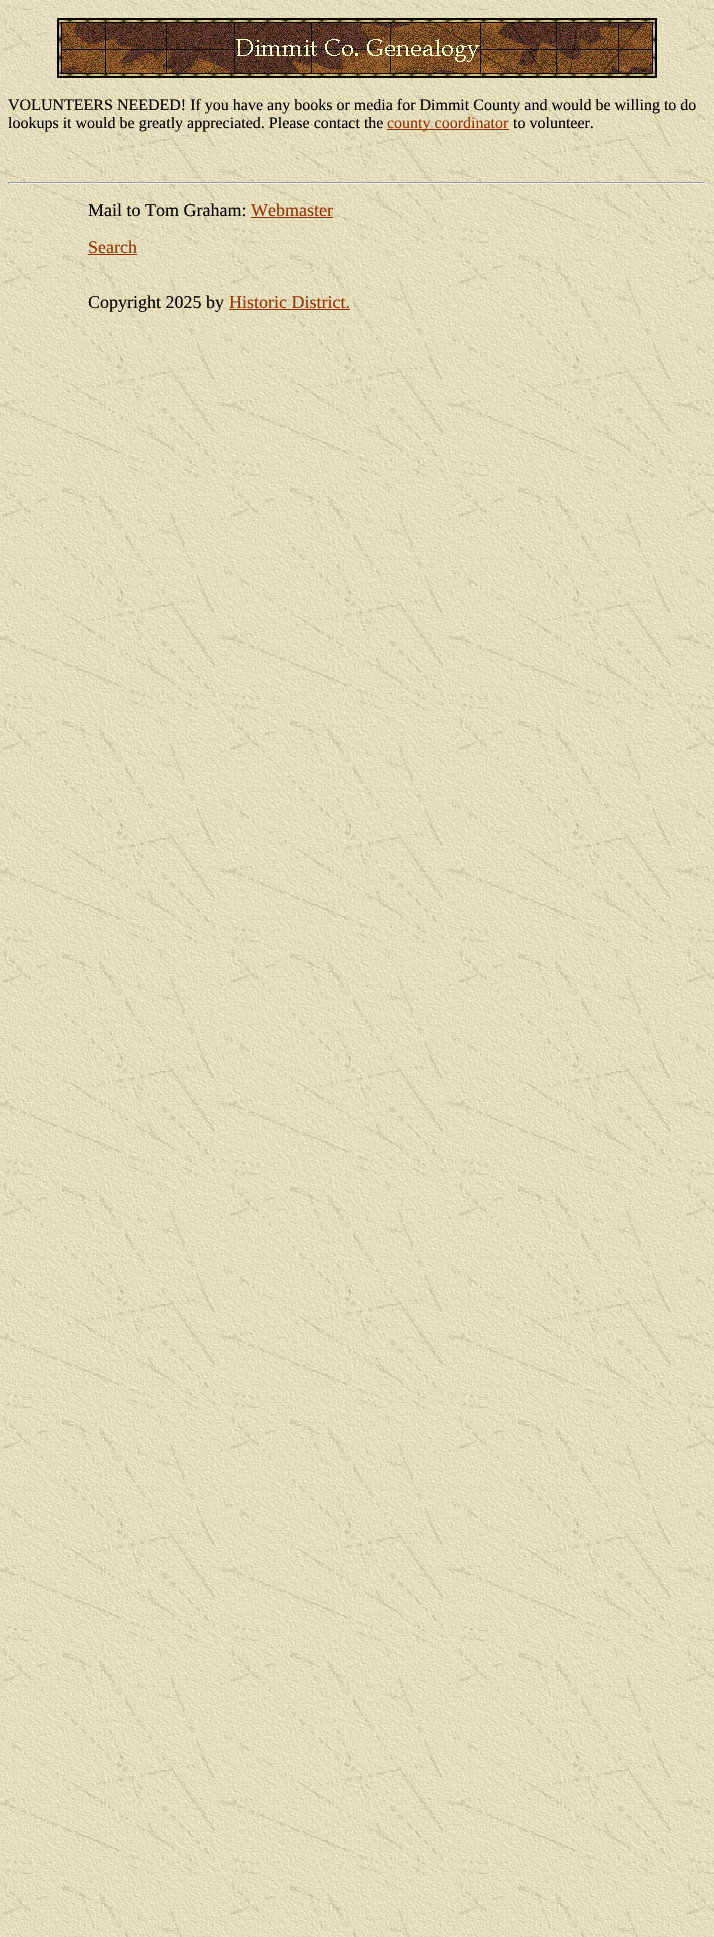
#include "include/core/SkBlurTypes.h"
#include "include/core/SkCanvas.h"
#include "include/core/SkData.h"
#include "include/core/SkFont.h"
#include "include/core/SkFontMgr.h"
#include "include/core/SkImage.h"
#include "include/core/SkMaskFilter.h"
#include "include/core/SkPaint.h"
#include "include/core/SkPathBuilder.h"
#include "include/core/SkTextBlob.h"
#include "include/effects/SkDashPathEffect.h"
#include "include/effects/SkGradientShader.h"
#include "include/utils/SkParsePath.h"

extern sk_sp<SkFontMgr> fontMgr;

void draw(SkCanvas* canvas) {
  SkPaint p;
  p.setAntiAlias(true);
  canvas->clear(SK_ColorWHITE);
  canvas->drawImageRect(SkImages::DeferredFromEncodedData(SkData::MakeFromFileName("images/1.png")), SkRect::MakeLTRB(0, 0, 714, 1937), SkSamplingOptions());
  canvas->drawImageRect(SkImages::DeferredFromEncodedData(SkData::MakeFromFileName("images/2.png")), SkRect::MakeLTRB(57, 18, 657, 78), SkSamplingOptions());
  p.setColor(SkColorSetRGB(153, 51, 0));
  canvas->drawRect(SkRect::MakeLTRB(387, 129, 509, 130), p);
  p.setColor(SkColorSetRGB(159, 159, 159));
  canvas->drawRect(SkRect::MakeLTRB(8, 182, 706, 183), p);
  p.setColor(SkColorSetRGB(238, 238, 238));
  canvas->drawRect(SkRect::MakeLTRB(705, 182, 706, 184), p);
  canvas->drawRect(SkRect::MakeLTRB(8, 183, 706, 184), p);
  p.setColor(SkColorSetRGB(159, 159, 159));
  canvas->drawRect(SkRect::MakeLTRB(8, 182, 9, 184), p);
  p.setColor(SkColorSetRGB(153, 51, 0));
  canvas->drawRect(SkRect::MakeLTRB(251, 217, 333, 218), p);
  canvas->drawRect(SkRect::MakeLTRB(88, 254, 137, 255), p);
  canvas->drawRect(SkRect::MakeLTRB(229, 309, 350, 310), p);
  SkFont font1(fontMgr->matchFamilyStyle("Liberation Serif", SkFontStyle::Normal()), 16);
  font1.setSubpixel(true);
  p.setColor(SK_ColorBLACK);
  canvas->drawString("VOLUNTEERS NEEDED! If you have any books or media for Dimmit County and would be willing to do", 8, 110, font1, p);
  canvas->drawString("lookups it would be greatly appreciated. Please contact the", 8, 128, font1, p);
  p.setColor(SkColorSetRGB(153, 51, 0));
  canvas->drawString("county coordinator", 387, 128, font1, p);
  p.setColor(SK_ColorBLACK);
  canvas->drawString("to volunteer.", 513, 128, font1, p);
  SkFont font2(fontMgr->matchFamilyStyle("Liberation Serif", SkFontStyle::Normal()), 18);
  font2.setSubpixel(true);
  canvas->drawString("Mail to Tom Graham:", 88, 216, font2, p);
  p.setColor(SkColorSetRGB(153, 51, 0));
  canvas->drawString("Webmaster", 251, 216, font2, p);
  canvas->drawString("Search", 88, 253, font2, p);
  p.setColor(SK_ColorBLACK);
  canvas->drawString("Copyright 2025 by", 88, 308, font2, p);
  p.setColor(SkColorSetRGB(153, 51, 0));
  canvas->drawString("Historic District.", 229, 308, font2, p);
}
